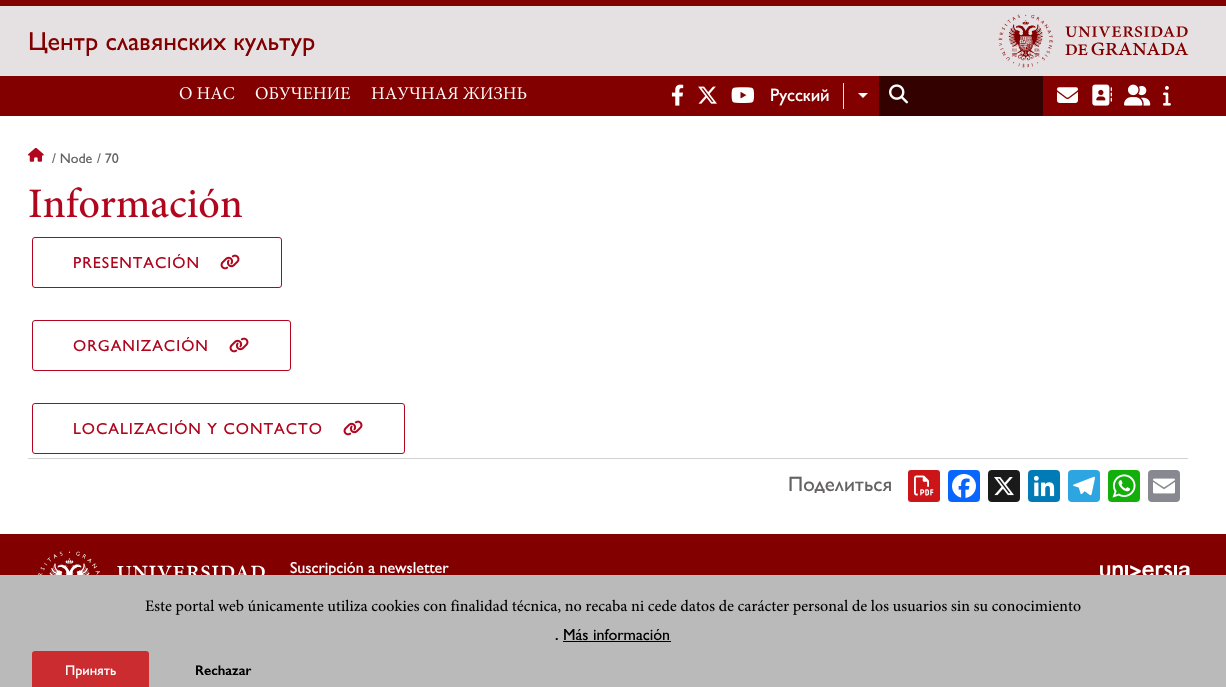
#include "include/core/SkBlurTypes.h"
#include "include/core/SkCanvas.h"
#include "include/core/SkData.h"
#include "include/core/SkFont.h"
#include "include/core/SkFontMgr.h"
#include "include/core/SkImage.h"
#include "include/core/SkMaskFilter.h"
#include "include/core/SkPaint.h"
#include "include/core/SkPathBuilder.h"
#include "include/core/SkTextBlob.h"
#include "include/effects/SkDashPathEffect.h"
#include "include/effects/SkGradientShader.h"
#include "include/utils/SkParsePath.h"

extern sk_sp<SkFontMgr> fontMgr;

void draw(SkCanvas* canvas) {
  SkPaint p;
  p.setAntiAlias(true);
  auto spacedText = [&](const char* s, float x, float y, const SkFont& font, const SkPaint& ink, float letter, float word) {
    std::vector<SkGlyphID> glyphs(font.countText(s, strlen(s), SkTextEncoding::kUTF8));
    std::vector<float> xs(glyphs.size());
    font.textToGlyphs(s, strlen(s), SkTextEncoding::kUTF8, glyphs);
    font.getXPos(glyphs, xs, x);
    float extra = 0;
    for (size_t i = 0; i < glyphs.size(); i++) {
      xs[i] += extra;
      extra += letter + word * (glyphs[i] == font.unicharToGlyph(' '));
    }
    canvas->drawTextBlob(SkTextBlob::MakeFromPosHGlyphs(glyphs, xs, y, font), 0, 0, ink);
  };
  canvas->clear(SK_ColorWHITE);
  p.setColor(SkColorSetRGB(130, 0, 0));
  canvas->drawRect(SkRect::MakeLTRB(0, 0, 1226, 6), p);
  canvas->drawRect(SkRect::MakeLTRB(0, 76, 1226, 116), p);
  p.setColor(SkColorSetRGB(229, 225, 226));
  canvas->drawRect(SkRect::MakeLTRB(0, 6, 1226, 76), p);
  canvas->drawImageRect(SkImages::DeferredFromEncodedData(SkData::MakeFromFileName("images/1.png")), SkRect::MakeLTRB(998, 14, 1189, 68), SkSamplingOptions());
  canvas->drawImageRect(SkImages::DeferredFromEncodedData(SkData::MakeFromFileName("images/2.png")), SkRect::MakeLTRB(179, 87, 235, 100), SkSamplingOptions());
  canvas->drawImageRect(SkImages::DeferredFromEncodedData(SkData::MakeFromFileName("images/3.png")), SkRect::MakeLTRB(255, 87, 350, 100), SkSamplingOptions());
  canvas->drawImageRect(SkImages::DeferredFromEncodedData(SkData::MakeFromFileName("images/4.png")), SkRect::MakeLTRB(371, 87, 527, 100), SkSamplingOptions());
  canvas->drawImageRect(SkImages::DeferredFromEncodedData(SkData::MakeFromFileName("images/5.png")), SkRect::MakeLTRB(671, 84, 684, 106), SkSamplingOptions());
  canvas->drawImageRect(SkImages::DeferredFromEncodedData(SkData::MakeFromFileName("images/6.png")), SkRect::MakeLTRB(698, 86, 717, 104), SkSamplingOptions());
  canvas->drawImageRect(SkImages::DeferredFromEncodedData(SkData::MakeFromFileName("images/7.png")), SkRect::MakeLTRB(731, 87, 754, 103), SkSamplingOptions());
  p.setColor(SkColorSetRGB(232, 232, 232));
  canvas->drawRect(SkRect::MakeLTRB(843, 83, 844, 109), p);
  p.setColor(SK_ColorWHITE);
  canvas->drawPath(SkPathBuilder().moveTo(858, 93).lineTo(868, 93).lineTo(863, 98).close().detach(), p);
  p.setColor(SkColorSetRGB(52, 1, 1));
  canvas->drawRect(SkRect::MakeLTRB(879, 76, 1043, 116), p);
  canvas->drawImageRect(SkImages::DeferredFromEncodedData(SkData::MakeFromFileName("images/8.png")), SkRect::MakeLTRB(889, 84, 908, 104), SkSamplingOptions());
  canvas->drawImageRect(SkImages::DeferredFromEncodedData(SkData::MakeFromFileName("images/9.png")), SkRect::MakeLTRB(1057, 87, 1078, 103), SkSamplingOptions());
  canvas->drawImageRect(SkImages::DeferredFromEncodedData(SkData::MakeFromFileName("images/10.png")), SkRect::MakeLTRB(1092, 84, 1112, 106), SkSamplingOptions());
  canvas->drawImageRect(SkImages::DeferredFromEncodedData(SkData::MakeFromFileName("images/11.png")), SkRect::MakeLTRB(1124, 84, 1151, 106), SkSamplingOptions());
  canvas->drawImageRect(SkImages::DeferredFromEncodedData(SkData::MakeFromFileName("images/12.png")), SkRect::MakeLTRB(1163, 86, 1171, 106), SkSamplingOptions());
  canvas->drawImageRect(SkImages::DeferredFromEncodedData(SkData::MakeFromFileName("images/13.png")), SkRect::MakeLTRB(28, 148, 44, 162), SkSamplingOptions());
  canvas->drawImageRect(SkImages::DeferredFromEncodedData(SkData::MakeFromFileName("images/14.png")), SkRect::MakeLTRB(29, 187, 242, 218), SkSamplingOptions());
  p.setStyle(SkPaint::kStroke_Style);
  p.setStrokeWidth(1);
  p.setColor(SkColorSetRGB(176, 6, 30));
  canvas->drawRoundRect(SkRect::MakeLTRB(32.5f, 237.5f, 281.5f, 287.5f), 2.5f, 2.5f, p);
  canvas->drawImageRect(SkImages::DeferredFromEncodedData(SkData::MakeFromFileName("images/15.png")), SkRect::MakeLTRB(220, 254, 240, 270), SkSamplingOptions());
  canvas->drawRoundRect(SkRect::MakeLTRB(32.5f, 320.5f, 290.5f, 370.5f), 2.5f, 2.5f, p);
  canvas->drawImageRect(SkImages::DeferredFromEncodedData(SkData::MakeFromFileName("images/15.png")), SkRect::MakeLTRB(229, 337, 249, 353), SkSamplingOptions());
  canvas->drawRoundRect(SkRect::MakeLTRB(32.5f, 403.5f, 404.5f, 453.5f), 2.5f, 2.5f, p);
  canvas->drawImageRect(SkImages::DeferredFromEncodedData(SkData::MakeFromFileName("images/15.png")), SkRect::MakeLTRB(343, 420, 363, 436), SkSamplingOptions());
  p.setStyle(SkPaint::kFill_Style);
  p.setColor(SkColorSetRGB(211, 210, 210));
  canvas->drawRect(SkRect::MakeLTRB(28, 458, 1188, 459), p);
  p.setColor(SkColorSetRGB(204, 21, 25));
  canvas->drawRoundRect(SkRect::MakeLTRB(908, 470, 940, 502), 3, 3, p);
  canvas->drawImageRect(SkImages::DeferredFromEncodedData(SkData::MakeFromFileName("images/16.png")), SkRect::MakeLTRB(914, 475, 934, 496), SkSamplingOptions());
  p.setColor(SkColorSetRGB(8, 102, 255));
  canvas->drawRoundRect(SkRect::MakeLTRB(948, 470, 980, 502), 4, 4, p);
  canvas->drawImageRect(SkImages::DeferredFromEncodedData(SkData::MakeFromFileName("images/17.png")), SkRect::MakeLTRB(952, 474, 976, 498), SkSamplingOptions());
  p.setColor(SkColorSetRGB(26, 26, 26));
  canvas->drawRoundRect(SkRect::MakeLTRB(988, 470, 1020, 502), 4, 4, p);
  canvas->drawImageRect(SkImages::DeferredFromEncodedData(SkData::MakeFromFileName("images/18.png")), SkRect::MakeLTRB(994, 477, 1014, 496), SkSamplingOptions());
  p.setColor(SkColorSetRGB(0, 123, 181));
  canvas->drawRoundRect(SkRect::MakeLTRB(1028, 470, 1060, 502), 4, 4, p);
  canvas->drawImageRect(SkImages::DeferredFromEncodedData(SkData::MakeFromFileName("images/19.png")), SkRect::MakeLTRB(1033, 475, 1055, 497), SkSamplingOptions());
  p.setColor(SkColorSetRGB(44, 165, 224));
  canvas->drawRoundRect(SkRect::MakeLTRB(1068, 470, 1100, 502), 4, 4, p);
  canvas->drawImageRect(SkImages::DeferredFromEncodedData(SkData::MakeFromFileName("images/20.png")), SkRect::MakeLTRB(1073, 476, 1095, 496), SkSamplingOptions());
  p.setColor(SkColorSetRGB(18, 175, 10));
  canvas->drawRoundRect(SkRect::MakeLTRB(1108, 470, 1140, 502), 4, 4, p);
  canvas->drawImageRect(SkImages::DeferredFromEncodedData(SkData::MakeFromFileName("images/21.png")), SkRect::MakeLTRB(1112, 474, 1136, 498), SkSamplingOptions());
  p.setColor(SkColorSetRGB(136, 137, 144));
  canvas->drawRoundRect(SkRect::MakeLTRB(1148, 470, 1180, 502), 4, 4, p);
  canvas->drawImageRect(SkImages::DeferredFromEncodedData(SkData::MakeFromFileName("images/22.png")), SkRect::MakeLTRB(1153, 478, 1175, 494), SkSamplingOptions());
  p.setColor(SkColorSetRGB(130, 0, 0));
  canvas->drawRect(SkRect::MakeLTRB(0, 534, 1226, 575), p);
  canvas->drawImageRect(SkImages::DeferredFromEncodedData(SkData::MakeFromFileName("images/23.png")), SkRect::MakeLTRB(38, 551, 265, 575), SkSamplingOptions());
  canvas->drawImageRect(SkImages::DeferredFromEncodedData(SkData::MakeFromFileName("images/24.png")), SkRect::MakeLTRB(1100, 565, 1190, 575), SkSamplingOptions());
  SkFont font1(fontMgr->matchFamilyStyle("Gill Sans", SkFontStyle::Normal()), 26);
  font1.setSubpixel(true);
  canvas->drawString("Центр славянских культур", 28, 50, font1, p);
  SkFont font2(fontMgr->matchFamilyStyle("Gill Sans", SkFontStyle::Normal()), 18);
  font2.setSubpixel(true);
  p.setColor(SK_ColorWHITE);
  canvas->drawString("Русский", 770, 101, font2, p);
  SkFont font3(fontMgr->matchFamilyStyle("Gill Sans", SkFontStyle::Normal()), 14);
  font3.setSubpixel(true);
  p.setColor(SkColorSetRGB(101, 98, 98));
  canvas->drawString("/ Node", 52, 163, font3, p);
  canvas->drawString("/ 70", 97, 163, font3, p);
  SkFont font4(fontMgr->matchFamilyStyle("Gill Sans", SkFontStyle::Normal()), 16);
  font4.setSubpixel(true);
  p.setColor(SkColorSetRGB(176, 6, 30));
  spacedText("PRESENTACIÓN", 73, 268, font4, p, 1, 0);
  spacedText("ORGANIZACIÓN", 73, 351, font4, p, 1, 0);
  spacedText("LOCALIZACIÓN Y CONTACTO", 73, 434, font4, p, 1, 0);
  SkFont font5(fontMgr->matchFamilyStyle("Gill Sans", SkFontStyle::Normal()), 20.75f);
  font5.setSubpixel(true);
  p.setColor(SkColorSetRGB(101, 98, 98));
  canvas->drawString("Поделиться", 788, 491, font5, p);
  p.setColor(SK_ColorWHITE);
  canvas->drawString("Suscripción a newsletter", 290, 573, font4, p);
  p.setColor(SkColorSetRGB(186, 186, 186));
  canvas->drawRect(SkRect::MakeLTRB(0, 575, 1226, 687), p);
  canvas->drawImageRect(SkImages::DeferredFromEncodedData(SkData::MakeFromFileName("images/25.png")), SkRect::MakeLTRB(145, 599, 1081, 615), SkSamplingOptions());
  SkFont font6(fontMgr->matchFamilyStyle("Gill Sans", SkFontStyle(600, SkFontStyle::kNormal_Width, SkFontStyle::kUpright_Slant)), 14);
  font6.setSubpixel(true);
  p.setColor(SK_ColorBLACK);
  canvas->drawString(".", 555, 640, font6, p);
  canvas->drawString("Más información", 563, 640, font4, p);
  canvas->drawRect(SkRect::MakeLTRB(563, 641, 671, 642), p);
  p.setColor(SkColorSetRGB(203, 44, 48));
  canvas->drawRoundRect(SkRect::MakeLTRB(32, 651, 149, 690), 3, 3, p);
  p.setColor(SK_ColorWHITE);
  canvas->drawString("Принять", 65, 675, font3, p);
  p.setColor(SK_ColorBLACK);
  canvas->drawString("Rechazar", 195, 675, font6, p);
}
